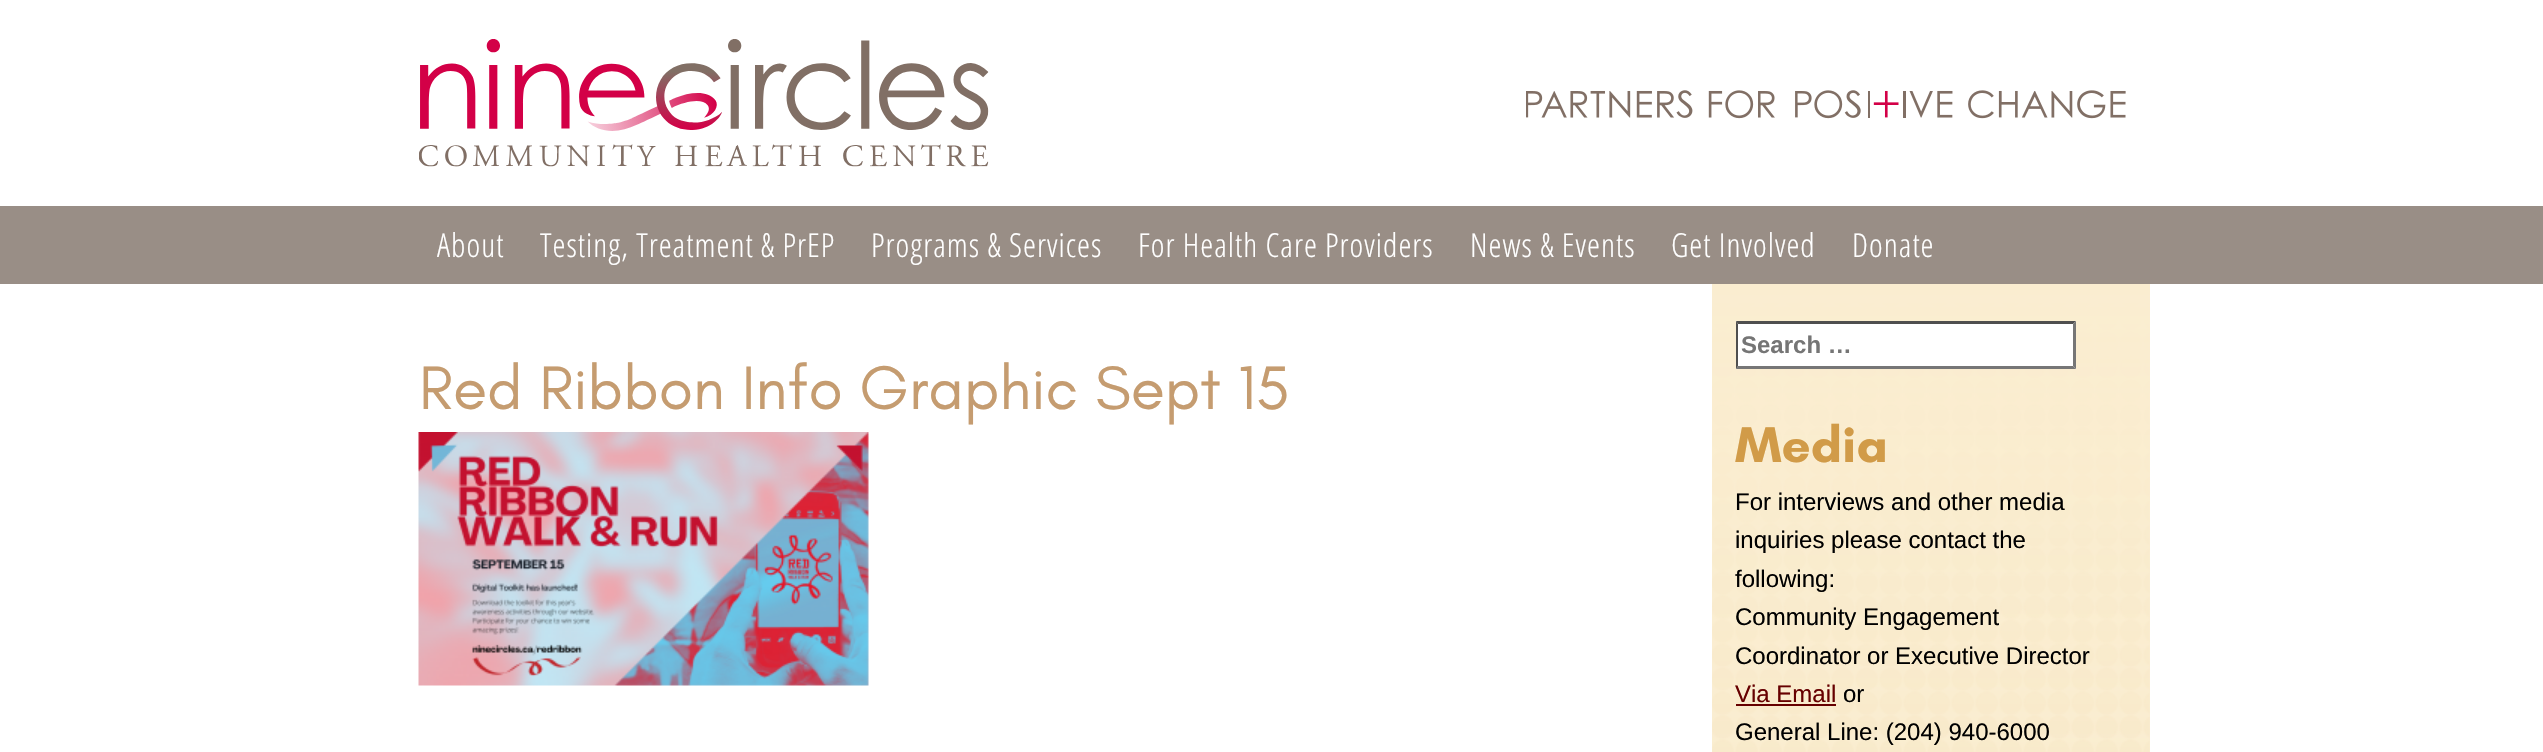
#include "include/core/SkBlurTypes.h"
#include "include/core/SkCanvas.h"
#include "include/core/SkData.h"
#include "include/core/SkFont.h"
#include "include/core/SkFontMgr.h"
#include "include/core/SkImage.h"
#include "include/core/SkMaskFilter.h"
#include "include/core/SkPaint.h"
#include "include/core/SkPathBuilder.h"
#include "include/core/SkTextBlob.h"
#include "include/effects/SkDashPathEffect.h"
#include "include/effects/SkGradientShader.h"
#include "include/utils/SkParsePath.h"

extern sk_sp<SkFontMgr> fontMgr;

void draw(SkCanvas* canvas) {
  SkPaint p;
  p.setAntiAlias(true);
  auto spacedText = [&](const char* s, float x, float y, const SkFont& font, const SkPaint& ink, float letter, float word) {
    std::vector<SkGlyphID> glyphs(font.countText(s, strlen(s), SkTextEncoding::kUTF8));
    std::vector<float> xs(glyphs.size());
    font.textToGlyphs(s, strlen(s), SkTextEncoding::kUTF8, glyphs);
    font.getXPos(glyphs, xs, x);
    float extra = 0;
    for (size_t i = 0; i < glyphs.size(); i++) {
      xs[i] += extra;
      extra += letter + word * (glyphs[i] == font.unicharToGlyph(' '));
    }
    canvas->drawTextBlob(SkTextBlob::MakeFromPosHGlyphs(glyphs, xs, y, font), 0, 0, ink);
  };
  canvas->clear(SK_ColorWHITE);
  canvas->drawImageRect(SkImages::DeferredFromEncodedData(SkData::MakeFromFileName("images/1.png")), SkRect::MakeLTRB(419, 39, 989, 167), SkSamplingOptions());
  canvas->drawImageRect(SkImages::DeferredFromEncodedData(SkData::MakeFromFileName("images/2.png")), SkRect::MakeLTRB(1526, 90, 2126, 119), SkSamplingOptions());
  p.setColor(SkColorSetRGB(153, 142, 134));
  canvas->drawRect(SkRect::MakeLTRB(0, 206, 2543, 284), p);
  canvas->drawImageRect(SkImages::DeferredFromEncodedData(SkData::MakeFromFileName("images/3.png")), SkRect::MakeLTRB(418, 432, 869, 686), SkSamplingOptions());
  p.setColor(SkColorSetRGB(250, 237, 208));
  canvas->drawRect(SkRect::MakeLTRB(1712, 290, 2150, 752), p);
  canvas->drawImageRect(SkImages::DeferredFromEncodedData(SkData::MakeFromFileName("images/4.png")), SkRect::MakeLTRB(1712, 290, 2150, 752), SkSamplingOptions());
  {
    const SkColor colors[] = {SkColorSetRGB(250, 237, 208), SkColorSetARGB(0, 250, 237, 208)};
    const float stops[] = {0, 1};
    const SkPoint ends[] = {{1931, 284}, {1931, 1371}};
    p.setShader(SkGradientShader::MakeLinear(ends, colors, stops, 2, SkTileMode::kClamp));
    p.setAlpha(255);
  }
  canvas->drawRect(SkRect::MakeLTRB(1712, 284, 2150, 752), p);
  p.setShader(nullptr);
  p.setColor(SK_ColorWHITE);
  canvas->drawRect(SkRect::MakeLTRB(1736, 321, 2076, 369), p);
  p.setColor(SkColorSetRGB(79, 79, 79));
  canvas->drawPath(SkPathBuilder().moveTo(1736, 321).lineTo(2076, 321).lineTo(2073, 324).lineTo(1738, 324).close().detach(), p);
  p.setColor(SkColorSetRGB(118, 118, 118));
  canvas->drawPath(SkPathBuilder().moveTo(2076, 321).lineTo(2076, 369).lineTo(2073, 366).lineTo(2073, 324).close().detach(), p);
  canvas->drawPath(SkPathBuilder().moveTo(2076, 369).lineTo(1736, 369).lineTo(1738, 366).lineTo(2073, 366).close().detach(), p);
  p.setColor(SkColorSetRGB(79, 79, 79));
  canvas->drawPath(SkPathBuilder().moveTo(1736, 369).lineTo(1736, 321).lineTo(1738, 324).lineTo(1738, 366).close().detach(), p);
  p.setColor(SkColorSetRGB(102, 0, 0));
  canvas->drawRect(SkRect::MakeLTRB(1736, 704, 1836, 706), p);
  SkFont font1(fontMgr->matchFamilyStyle("Open Sans Condensed", SkFontStyle(300, SkFontStyle::kNormal_Width, SkFontStyle::kUpright_Slant)), 33);
  font1.setSubpixel(true);
  p.setColor(SK_ColorWHITE);
  spacedText("About", 437, 257, font1, p, 1, 0);
  spacedText("Testing, Treatment & PrEP", 540, 257, font1, p, 1, 0);
  spacedText("Programs & Services", 871, 257, font1, p, 1, 0);
  spacedText("For Health Care Providers", 1138, 257, font1, p, 1, 0);
  spacedText("News & Events", 1470, 257, font1, p, 1, 0);
  spacedText("Get Involved", 1671, 257, font1, p, 1, 0);
  spacedText("Donate", 1852, 257, font1, p, 1, 0);
  SkFont font2(fontMgr->matchFamilyStyle("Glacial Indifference", SkFontStyle::Normal()), 62.4f);
  font2.setSubpixel(true);
  p.setColor(SkColorSetRGB(197, 156, 112));
  canvas->drawString("Red Ribbon Info Graphic Sept 15", 419, 409, font2, p);
  SkFont font3(fontMgr->matchFamilyStyle("Liberation Sans", SkFontStyle::Bold()), 24);
  font3.setSubpixel(true);
  p.setColor(SkColorSetRGB(117, 117, 117));
  canvas->drawString("Search …", 1741, 353, font3, p);
  SkFont font4(fontMgr->matchFamilyStyle("Glacial Indifference", SkFontStyle::Bold()), 51);
  font4.setSubpixel(true);
  p.setColor(SkColorSetRGB(209, 155, 72));
  canvas->drawString("Media", 1735, 462, font4, p);
  SkFont font5(fontMgr->matchFamilyStyle("Liberation Sans", SkFontStyle::Normal()), 24);
  font5.setSubpixel(true);
  p.setColor(SK_ColorBLACK);
  canvas->drawString("For interviews and other media", 1735, 510, font5, p);
  canvas->drawString("inquiries please contact the", 1735, 548, font5, p);
  canvas->drawString("following:", 1735, 587, font5, p);
  canvas->drawString("Community Engagement", 1735, 625, font5, p);
  canvas->drawString("Coordinator or Executive Director", 1735, 664, font5, p);
  p.setColor(SkColorSetRGB(102, 0, 0));
  canvas->drawString("Via Email", 1735, 702, font5, p);
  p.setColor(SK_ColorBLACK);
  canvas->drawString("or", 1843, 702, font5, p);
  canvas->drawString("General Line: (204) 940-6000", 1735, 740, font5, p);
}
